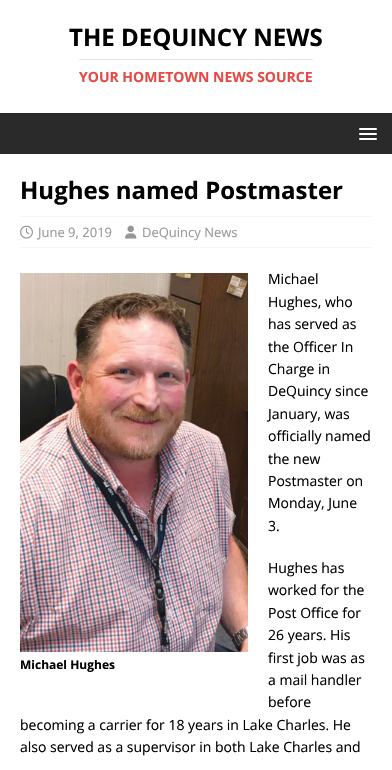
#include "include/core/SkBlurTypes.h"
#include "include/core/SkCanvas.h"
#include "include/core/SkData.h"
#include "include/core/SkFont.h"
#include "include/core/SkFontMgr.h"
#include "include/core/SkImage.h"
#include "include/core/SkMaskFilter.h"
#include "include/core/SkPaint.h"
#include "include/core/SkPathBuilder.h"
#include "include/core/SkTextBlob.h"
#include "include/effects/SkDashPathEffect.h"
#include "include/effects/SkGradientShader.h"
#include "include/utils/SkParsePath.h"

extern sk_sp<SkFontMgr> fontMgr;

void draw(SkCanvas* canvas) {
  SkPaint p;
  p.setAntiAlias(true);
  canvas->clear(SK_ColorWHITE);
  p.setColor(SkColorSetRGB(229, 229, 229));
  canvas->drawRect(SkRect::MakeLTRB(79, 59, 313, 60), p);
  p.setColor(SkColorSetRGB(42, 42, 42));
  canvas->drawRect(SkRect::MakeLTRB(0, 113, 392, 154), p);
  p.setColor(SK_ColorWHITE);
  canvas->drawRoundRect(SkRect::MakeLTRB(359, 128, 377, 130), 1, 1, p);
  canvas->drawRoundRect(SkRect::MakeLTRB(359, 133, 377, 135), 1, 1, p);
  canvas->drawRoundRect(SkRect::MakeLTRB(359, 138, 377, 140), 1, 1, p);
  p.setStyle(SkPaint::kStroke_Style);
  p.setStrokeWidth(1);
  p.setColor(SkColorSetRGB(235, 235, 235));
  p.setPathEffect(SkDashPathEffect::Make({{1, 1}}, 0));
  canvas->drawPath(SkPathBuilder().moveTo(20, 216.5f).lineTo(372, 216.5f).detach(), p);
  p.setPathEffect(nullptr);
  p.setPathEffect(SkDashPathEffect::Make({{1, 1}}, 0));
  canvas->drawPath(SkPathBuilder().moveTo(20, 247.5f).lineTo(372, 247.5f).detach(), p);
  p.setPathEffect(nullptr);
  canvas->drawImageRect(SkImages::DeferredFromEncodedData(SkData::MakeFromFileName("images/1.png")), SkRect::MakeLTRB(20, 225, 33, 239), SkSamplingOptions());
  canvas->drawImageRect(SkImages::DeferredFromEncodedData(SkData::MakeFromFileName("images/2.png")), SkRect::MakeLTRB(125, 225, 137, 239), SkSamplingOptions());
  canvas->drawImageRect(SkImages::DeferredFromEncodedData(SkData::MakeFromFileName("images/3.png")), SkRect::MakeLTRB(20, 273, 248, 652), SkSamplingOptions());
  SkFont font1(fontMgr->matchFamilyStyle("Open Sans", SkFontStyle::Bold()), 24);
  font1.setSubpixel(true);
  p.setStyle(SkPaint::kFill_Style);
  p.setColor(SK_ColorBLACK);
  canvas->drawString("THE DEQUINCY NEWS", 69, 46, font1, p);
  SkFont font2(fontMgr->matchFamilyStyle("Open Sans", SkFontStyle::Bold()), 14);
  font2.setSubpixel(true);
  p.setColor(SkColorSetRGB(230, 73, 70));
  canvas->drawString("YOUR HOMETOWN NEWS SOURCE", 79, 82, font2, p);
  p.setColor(SK_ColorBLACK);
  canvas->drawString("Hughes named Postmaster", 20, 199, font1, p);
  SkFont font3(fontMgr->matchFamilyStyle("Open Sans", SkFontStyle::Normal()), 13);
  font3.setSubpixel(true);
  p.setColor(SkColorSetRGB(151, 151, 151));
  canvas->drawString("June 9, 2019", 38, 237, font3, p);
  canvas->drawString("DeQuincy News", 142, 237, font3, p);
  SkFont font4(fontMgr->matchFamilyStyle("Open Sans", SkFontStyle::Normal()), 14);
  font4.setSubpixel(true);
  p.setColor(SK_ColorBLACK);
  canvas->drawString("Michael", 268, 284, font4, p);
  canvas->drawString("Hughes, who", 268, 307, font4, p);
  canvas->drawString("has served as", 268, 329, font4, p);
  canvas->drawString("the Officer In", 268, 352, font4, p);
  canvas->drawString("Charge in", 268, 374, font4, p);
  canvas->drawString("DeQuincy since", 268, 396, font4, p);
  canvas->drawString("January, was", 268, 419, font4, p);
  canvas->drawString("officially named", 268, 441, font4, p);
  canvas->drawString("the new", 268, 464, font4, p);
  canvas->drawString("Postmaster on", 268, 486, font4, p);
  canvas->drawString("Monday, June", 268, 508, font4, p);
  canvas->drawString("3.", 268, 531, font4, p);
  canvas->drawString("Hughes has", 268, 573, font4, p);
  canvas->drawString("worked for the", 268, 595, font4, p);
  canvas->drawString("Post Office for", 268, 618, font4, p);
  canvas->drawString("26 years. His", 268, 640, font4, p);
  canvas->drawString("first job was as", 268, 663, font4, p);
  canvas->drawString("a mail handler", 268, 685, font4, p);
  canvas->drawString("before", 268, 707, font4, p);
  canvas->drawString("becoming a carrier for 18 years in Lake Charles. He", 20, 730, font4, p);
  canvas->drawString("also served as a supervisor in both Lake Charles and", 20, 752, font4, p);
  SkFont font5(fontMgr->matchFamilyStyle("Open Sans", SkFontStyle::Bold()), 12);
  font5.setSubpixel(true);
  canvas->drawString("Michael Hughes", 20, 669, font5, p);
}
